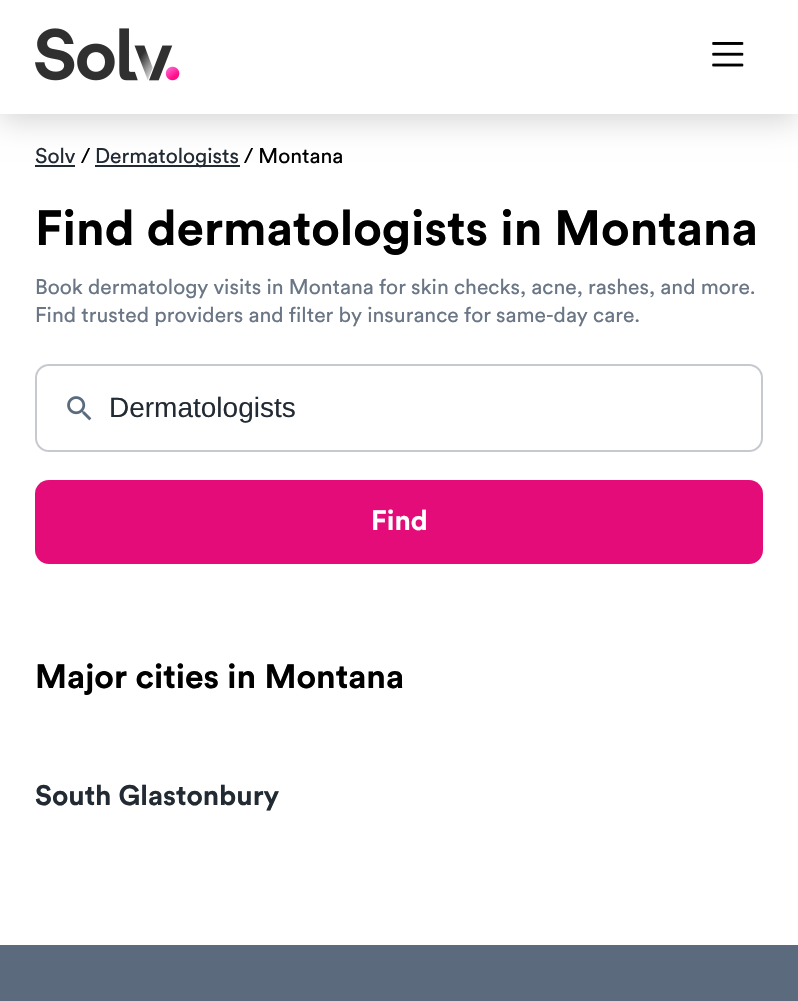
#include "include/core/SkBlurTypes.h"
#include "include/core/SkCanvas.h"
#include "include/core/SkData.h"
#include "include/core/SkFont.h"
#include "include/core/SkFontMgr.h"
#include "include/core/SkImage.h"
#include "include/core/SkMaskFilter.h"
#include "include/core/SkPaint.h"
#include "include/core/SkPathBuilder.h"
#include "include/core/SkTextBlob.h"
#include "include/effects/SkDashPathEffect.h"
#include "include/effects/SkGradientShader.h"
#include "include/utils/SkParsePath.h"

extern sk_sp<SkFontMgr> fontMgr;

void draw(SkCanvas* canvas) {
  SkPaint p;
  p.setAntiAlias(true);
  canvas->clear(SK_ColorWHITE);
  p.setColor(SkColorSetARGB(41, 0, 0, 0));
  p.setMaskFilter(SkMaskFilter::MakeBlur(kNormal_SkBlurStyle, 14));
  canvas->drawRect(SkRect::MakeLTRB(0, 7, 798, 121), p);
  p.setMaskFilter(nullptr);
  p.setColor(SK_ColorWHITE);
  canvas->drawRect(SkRect::MakeLTRB(0, 0, 798, 114), p);
  canvas->drawImageRect(SkImages::DeferredFromEncodedData(SkData::MakeFromFileName("images/1.png")), SkRect::MakeLTRB(35, 28, 180, 81), SkSamplingOptions());
  canvas->drawImageRect(SkImages::DeferredFromEncodedData(SkData::MakeFromFileName("images/2.png")), SkRect::MakeLTRB(712, 42, 744, 67), SkSamplingOptions());
  p.setColor(SkColorSetRGB(34, 42, 51));
  canvas->drawRect(SkRect::MakeLTRB(35, 165, 75, 167), p);
  canvas->drawRect(SkRect::MakeLTRB(95, 165, 240, 167), p);
  p.setStyle(SkPaint::kStroke_Style);
  p.setStrokeWidth(2);
  p.setColor(SkColorSetRGB(198, 202, 207));
  canvas->drawRoundRect(SkRect::MakeLTRB(36, 365, 762, 451), 13, 13, p);
  p.setStyle(SkPaint::kFill_Style);
  p.setColor(SK_ColorWHITE);
  canvas->drawRoundRect(SkRect::MakeLTRB(37, 366, 761, 450), 14, 14, p);
  canvas->drawImageRect(SkImages::DeferredFromEncodedData(SkData::MakeFromFileName("images/3.png")), SkRect::MakeLTRB(67, 396, 92, 421), SkSamplingOptions());
  p.setColor(SkColorSetRGB(227, 12, 121));
  canvas->drawRoundRect(SkRect::MakeLTRB(35, 480, 763, 564), 14, 14, p);
  p.setColor(SkColorSetRGB(91, 107, 125));
  canvas->drawRect(SkRect::MakeLTRB(0, 945, 798, 1001), p);
  SkFont font1(fontMgr->matchFamilyStyle("Circular", SkFontStyle::Normal()), 21);
  font1.setSubpixel(true);
  p.setColor(SkColorSetRGB(34, 42, 51));
  canvas->drawString("Solv", 35, 163, font1, p);
  p.setColor(SK_ColorBLACK);
  canvas->drawString("/", 81, 163, font1, p);
  p.setColor(SkColorSetRGB(34, 42, 51));
  canvas->drawString("Dermatologists", 95, 163, font1, p);
  p.setColor(SK_ColorBLACK);
  canvas->drawString("/ Montana", 244, 163, font1, p);
  SkFont font2(fontMgr->matchFamilyStyle("Circular", SkFontStyle::Bold()), 49);
  font2.setSubpixel(true);
  canvas->drawString("Find dermatologists in Montana", 35, 245, font2, p);
  p.setColor(SkColorSetRGB(106, 118, 133));
  canvas->drawString("Book dermatology visits in Montana for skin checks, acne, rashes, and more.", 35, 294, font1, p);
  canvas->drawString("Find trusted providers and filter by insurance for same-day care.", 35, 322, font1, p);
  SkFont font3(fontMgr->matchFamilyStyle("Liberation Sans", SkFontStyle::Normal()), 28);
  font3.setSubpixel(true);
  p.setColor(SkColorSetRGB(34, 42, 51));
  canvas->drawString("Dermatologists", 109, 417, font3, p);
  SkFont font4(fontMgr->matchFamilyStyle("Circular", SkFontStyle::Bold()), 28);
  font4.setSubpixel(true);
  p.setColor(SK_ColorWHITE);
  canvas->drawString("Find", 371, 530, font4, p);
  SkFont font5(fontMgr->matchFamilyStyle("Circular", SkFontStyle::Bold()), 33.6f);
  font5.setSubpixel(true);
  p.setColor(SK_ColorBLACK);
  canvas->drawString("Major cities in Montana", 35, 688, font5, p);
  p.setColor(SkColorSetRGB(34, 42, 51));
  canvas->drawString("South Glastonbury", 35, 805, font4, p);
}
